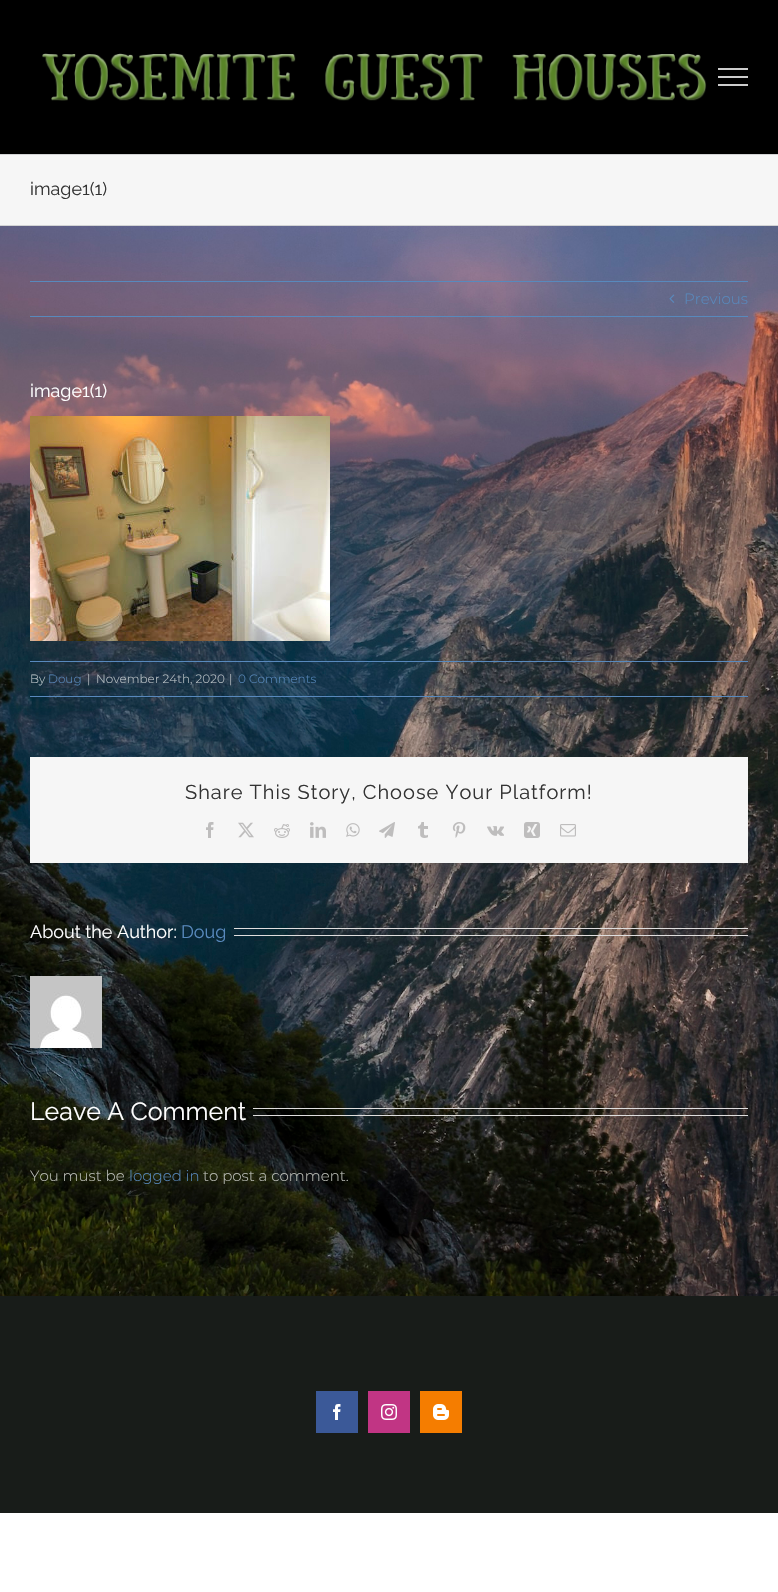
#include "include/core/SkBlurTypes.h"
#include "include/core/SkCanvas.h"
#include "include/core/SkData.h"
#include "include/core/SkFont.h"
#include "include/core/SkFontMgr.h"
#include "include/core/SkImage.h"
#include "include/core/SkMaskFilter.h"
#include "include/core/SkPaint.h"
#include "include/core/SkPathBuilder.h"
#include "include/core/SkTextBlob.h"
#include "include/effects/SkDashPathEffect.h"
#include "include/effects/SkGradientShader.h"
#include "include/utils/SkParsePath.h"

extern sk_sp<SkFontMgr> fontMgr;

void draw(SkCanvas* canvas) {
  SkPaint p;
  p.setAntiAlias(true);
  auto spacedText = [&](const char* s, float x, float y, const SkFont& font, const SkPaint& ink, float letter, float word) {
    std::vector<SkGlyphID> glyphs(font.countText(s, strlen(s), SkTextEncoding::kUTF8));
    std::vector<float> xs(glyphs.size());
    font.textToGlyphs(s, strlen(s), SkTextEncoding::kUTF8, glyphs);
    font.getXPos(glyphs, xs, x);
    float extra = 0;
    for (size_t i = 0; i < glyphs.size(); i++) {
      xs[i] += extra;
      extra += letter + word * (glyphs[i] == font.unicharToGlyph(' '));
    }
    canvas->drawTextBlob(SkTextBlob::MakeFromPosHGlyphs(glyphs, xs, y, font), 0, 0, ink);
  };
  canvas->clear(SK_ColorWHITE);
  p.setColor(SK_ColorBLACK);
  canvas->drawRect(SkRect::MakeLTRB(0, 0, 778, 154), p);
  canvas->drawImageRect(SkImages::DeferredFromEncodedData(SkData::MakeFromFileName("images/1.png")), SkRect::MakeLTRB(42, 53, 707, 101), SkSamplingOptions());
  p.setColor(SkColorSetRGB(204, 204, 204));
  canvas->drawRect(SkRect::MakeLTRB(718, 68, 748, 70), p);
  canvas->drawRect(SkRect::MakeLTRB(718, 76, 748, 78), p);
  canvas->drawRect(SkRect::MakeLTRB(718, 84, 748, 86), p);
  p.setColor(SkColorSetRGB(246, 246, 246));
  canvas->drawRect(SkRect::MakeLTRB(0, 155, 778, 225), p);
  p.setColor(SkColorSetRGB(210, 211, 212));
  canvas->drawRect(SkRect::MakeLTRB(0, 154, 778, 155), p);
  canvas->drawRect(SkRect::MakeLTRB(0, 225, 778, 226), p);
  canvas->drawImageRect(SkImages::DeferredFromEncodedData(SkData::MakeFromFileName("images/2.png")), SkRect::MakeLTRB(0, 226, 778, 1296), SkSamplingOptions());
  p.setColor(SkColorSetRGB(88, 137, 189));
  canvas->drawRect(SkRect::MakeLTRB(30, 281, 748, 282), p);
  canvas->drawRect(SkRect::MakeLTRB(30, 316, 748, 317), p);
  canvas->drawImageRect(SkImages::DeferredFromEncodedData(SkData::MakeFromFileName("images/3.png")), SkRect::MakeLTRB(669, 294, 675, 303), SkSamplingOptions());
  canvas->drawImageRect(SkImages::DeferredFromEncodedData(SkData::MakeFromFileName("images/4.png")), SkRect::MakeLTRB(30, 416, 330, 641), SkSamplingOptions());
  canvas->drawRect(SkRect::MakeLTRB(30, 661, 748, 662), p);
  canvas->drawRect(SkRect::MakeLTRB(30, 696, 748, 697), p);
  p.setColor(SkColorSetRGB(246, 246, 246));
  canvas->drawRect(SkRect::MakeLTRB(30, 757, 748, 863), p);
  canvas->drawImageRect(SkImages::DeferredFromEncodedData(SkData::MakeFromFileName("images/5.png")), SkRect::MakeLTRB(206, 822, 214, 838), SkSamplingOptions());
  canvas->drawImageRect(SkImages::DeferredFromEncodedData(SkData::MakeFromFileName("images/6.png")), SkRect::MakeLTRB(238, 822, 254, 838), SkSamplingOptions());
  canvas->drawImageRect(SkImages::DeferredFromEncodedData(SkData::MakeFromFileName("images/7.png")), SkRect::MakeLTRB(274, 824, 290, 838), SkSamplingOptions());
  canvas->drawImageRect(SkImages::DeferredFromEncodedData(SkData::MakeFromFileName("images/8.png")), SkRect::MakeLTRB(310, 822, 326, 838), SkSamplingOptions());
  canvas->drawImageRect(SkImages::DeferredFromEncodedData(SkData::MakeFromFileName("images/9.png")), SkRect::MakeLTRB(346, 823, 360, 837), SkSamplingOptions());
  canvas->drawImageRect(SkImages::DeferredFromEncodedData(SkData::MakeFromFileName("images/10.png")), SkRect::MakeLTRB(379, 822, 395, 838), SkSamplingOptions());
  canvas->drawImageRect(SkImages::DeferredFromEncodedData(SkData::MakeFromFileName("images/11.png")), SkRect::MakeLTRB(418, 822, 428, 838), SkSamplingOptions());
  canvas->drawImageRect(SkImages::DeferredFromEncodedData(SkData::MakeFromFileName("images/12.png")), SkRect::MakeLTRB(452, 822, 466, 838), SkSamplingOptions());
  canvas->drawImageRect(SkImages::DeferredFromEncodedData(SkData::MakeFromFileName("images/13.png")), SkRect::MakeLTRB(487, 826, 504, 836), SkSamplingOptions());
  canvas->drawImageRect(SkImages::DeferredFromEncodedData(SkData::MakeFromFileName("images/14.png")), SkRect::MakeLTRB(524, 822, 540, 838), SkSamplingOptions());
  canvas->drawImageRect(SkImages::DeferredFromEncodedData(SkData::MakeFromFileName("images/15.png")), SkRect::MakeLTRB(560, 824, 576, 837), SkSamplingOptions());
  p.setColor(SkColorSetRGB(224, 222, 222));
  canvas->drawRect(SkRect::MakeLTRB(234, 928, 748, 929), p);
  canvas->drawRect(SkRect::MakeLTRB(234, 935, 748, 936), p);
  canvas->drawImageRect(SkImages::DeferredFromEncodedData(SkData::MakeFromFileName("images/16.png")), SkRect::MakeLTRB(30, 976, 102, 1048), SkSamplingOptions());
  canvas->drawRect(SkRect::MakeLTRB(253, 1108, 748, 1109), p);
  canvas->drawRect(SkRect::MakeLTRB(253, 1115, 748, 1116), p);
  p.setColor(SkColorSetRGB(24, 28, 25));
  canvas->drawRect(SkRect::MakeLTRB(0, 1296, 778, 1513), p);
  p.setColor(SkColorSetRGB(59, 89, 152));
  canvas->drawRect(SkRect::MakeLTRB(316, 1391, 358, 1433), p);
  canvas->drawImageRect(SkImages::DeferredFromEncodedData(SkData::MakeFromFileName("images/17.png")), SkRect::MakeLTRB(333, 1404, 341, 1420), SkSamplingOptions());
  p.setColor(SkColorSetRGB(193, 53, 132));
  canvas->drawRect(SkRect::MakeLTRB(368, 1391, 410, 1433), p);
  canvas->drawImageRect(SkImages::DeferredFromEncodedData(SkData::MakeFromFileName("images/18.png")), SkRect::MakeLTRB(381, 1404, 397, 1420), SkSamplingOptions());
  p.setColor(SkColorSetRGB(245, 125, 0));
  canvas->drawRect(SkRect::MakeLTRB(420, 1391, 462, 1433), p);
  canvas->drawImageRect(SkImages::DeferredFromEncodedData(SkData::MakeFromFileName("images/19.png")), SkRect::MakeLTRB(433, 1404, 449, 1420), SkSamplingOptions());
  SkFont font1(fontMgr->matchFamilyStyle("Raleway", SkFontStyle(100, SkFontStyle::kNormal_Width, SkFontStyle::kUpright_Slant)), 18);
  font1.setSubpixel(true);
  p.setColor(SkColorSetRGB(51, 51, 51));
  canvas->drawString("image1(1)", 30, 195, font1, p);
  SkFont font2(fontMgr->matchFamilyStyle("Montserrat", SkFontStyle(300, SkFontStyle::kNormal_Width, SkFontStyle::kUpright_Slant)), 15);
  font2.setSubpixel(true);
  p.setColor(SkColorSetRGB(88, 137, 189));
  canvas->drawString("Previous", 684, 304, font2, p);
  p.setColor(SK_ColorWHITE);
  canvas->drawString("image1(1)", 30, 397, font1, p);
  SkFont font3(fontMgr->matchFamilyStyle("Montserrat", SkFontStyle(300, SkFontStyle::kNormal_Width, SkFontStyle::kUpright_Slant)), 12);
  font3.setSubpixel(true);
  p.setColor(SkColorSetRGB(187, 195, 199));
  canvas->drawString("By", 30, 683, font3, p);
  p.setColor(SkColorSetRGB(88, 137, 189));
  canvas->drawString("Doug", 48, 683, font3, p);
  p.setColor(SkColorSetRGB(194, 198, 202));
  canvas->drawString("|", 87, 683, font3, p);
  p.setColor(SkColorSetRGB(187, 195, 199));
  canvas->drawString("November 24th, 2020", 96, 683, font3, p);
  p.setColor(SkColorSetRGB(194, 198, 202));
  canvas->drawString("|", 229, 683, font3, p);
  p.setColor(SkColorSetRGB(88, 137, 189));
  canvas->drawString("0 Comments", 238, 683, font3, p);
  SkFont font4(fontMgr->matchFamilyStyle("Raleway", SkFontStyle(100, SkFontStyle::kNormal_Width, SkFontStyle::kUpright_Slant)), 20);
  font4.setSubpixel(true);
  p.setColor(SkColorSetRGB(51, 51, 51));
  spacedText("Share This Story, Choose Your Platform!", 185, 799, font4, p, 1, 0);
  p.setColor(SK_ColorWHITE);
  canvas->drawString("About the Author:", 30, 938, font1, p);
  p.setColor(SkColorSetRGB(88, 137, 189));
  canvas->drawString("Doug", 181, 938, font1, p);
  SkFont font5(fontMgr->matchFamilyStyle("Raleway", SkFontStyle(100, SkFontStyle::kNormal_Width, SkFontStyle::kUpright_Slant)), 25);
  font5.setSubpixel(true);
  p.setColor(SK_ColorWHITE);
  canvas->drawString("Leave A Comment", 30, 1120, font5, p);
  p.setColor(SkColorSetRGB(188, 190, 184));
  canvas->drawString("You must be", 30, 1181, font2, p);
  p.setColor(SkColorSetRGB(88, 137, 189));
  canvas->drawString("logged in", 129, 1181, font2, p);
  p.setColor(SkColorSetRGB(188, 190, 184));
  canvas->drawString("to post a comment.", 203, 1181, font2, p);
}
